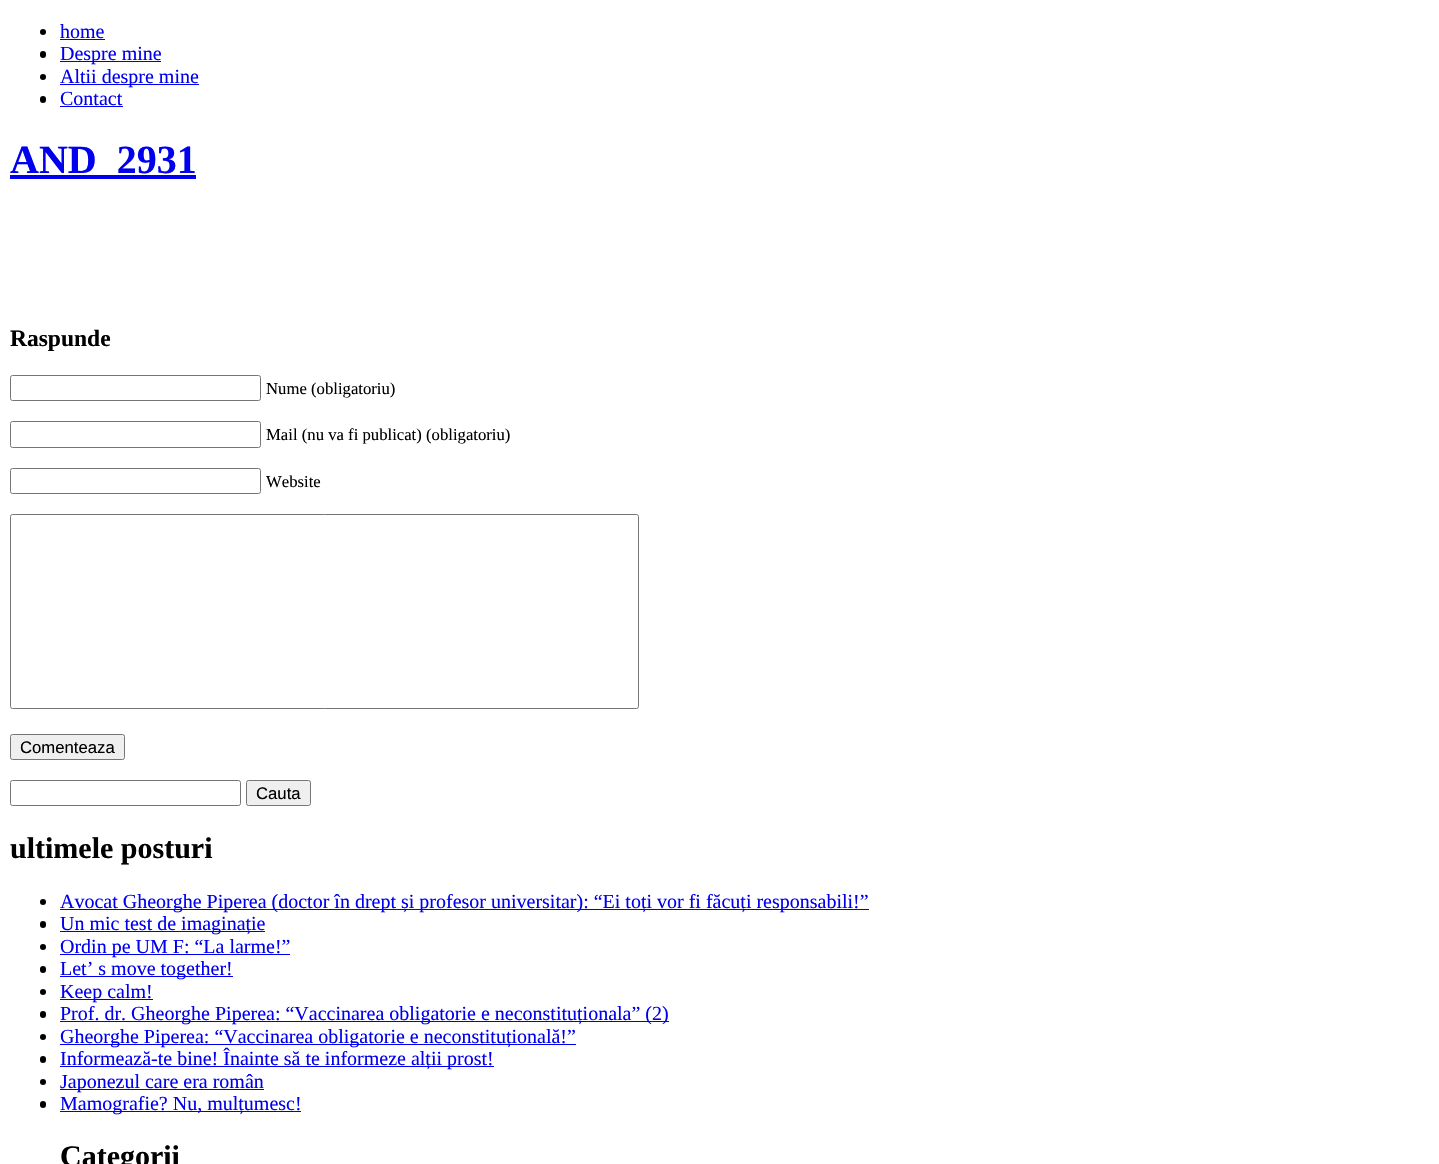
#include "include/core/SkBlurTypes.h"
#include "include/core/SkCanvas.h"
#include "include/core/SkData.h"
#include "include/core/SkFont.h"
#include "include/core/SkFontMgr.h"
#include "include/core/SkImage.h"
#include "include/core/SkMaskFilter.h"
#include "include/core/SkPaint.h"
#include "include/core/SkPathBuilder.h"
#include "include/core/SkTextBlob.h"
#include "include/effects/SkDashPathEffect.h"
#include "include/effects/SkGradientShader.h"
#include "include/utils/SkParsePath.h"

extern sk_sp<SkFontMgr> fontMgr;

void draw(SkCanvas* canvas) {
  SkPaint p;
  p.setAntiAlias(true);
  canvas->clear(SK_ColorWHITE);
  p.setColor(SK_ColorBLACK);
  canvas->drawCircle(43, 32, 3, p);
  p.setColor(SkColorSetRGB(0, 0, 238));
  canvas->drawRect(SkRect::MakeLTRB(60, 39, 105, 40), p);
  p.setColor(SK_ColorBLACK);
  canvas->drawRoundRect(SkRect::MakeLTRB(40, 51, 46, 58), 3, 3, p);
  p.setColor(SkColorSetRGB(0, 0, 238));
  canvas->drawRect(SkRect::MakeLTRB(60, 61, 161, 62), p);
  p.setColor(SK_ColorBLACK);
  canvas->drawCircle(43, 77, 3, p);
  p.setColor(SkColorSetRGB(0, 0, 238));
  canvas->drawRect(SkRect::MakeLTRB(60, 84, 199, 85), p);
  p.setColor(SK_ColorBLACK);
  canvas->drawRoundRect(SkRect::MakeLTRB(40, 96, 46, 103), 3, 3, p);
  p.setColor(SkColorSetRGB(0, 0, 238));
  canvas->drawRect(SkRect::MakeLTRB(60, 106, 123, 107), p);
  canvas->drawRect(SkRect::MakeLTRB(10, 175, 196, 179), p);
  p.setStyle(SkPaint::kStroke_Style);
  p.setStrokeWidth(1);
  p.setColor(SkColorSetRGB(118, 118, 118));
  canvas->drawRoundRect(SkRect::MakeLTRB(10.5f, 375.5f, 260.5f, 400.5f), 2, 2, p);
  canvas->drawRoundRect(SkRect::MakeLTRB(10.5f, 421.5f, 260.5f, 447.5f), 2, 2, p);
  canvas->drawRoundRect(SkRect::MakeLTRB(10.5f, 468.5f, 260.5f, 493.5f), 2, 2, p);
  canvas->drawRoundRect(SkRect::MakeLTRB(10.5f, 514.5f, 638.5f, 708.5f), 2, 2, p);
  p.setStyle(SkPaint::kFill_Style);
  p.setColor(SkColorSetRGB(239, 239, 239));
  canvas->drawRoundRect(SkRect::MakeLTRB(10.5f, 734.5f, 124.5f, 759.5f), 2, 2, p);
  p.setStyle(SkPaint::kStroke_Style);
  p.setColor(SkColorSetRGB(118, 118, 118));
  canvas->drawRoundRect(SkRect::MakeLTRB(10.5f, 734.5f, 124.5f, 759.5f), 2, 2, p);
  canvas->drawRoundRect(SkRect::MakeLTRB(10.5f, 780.5f, 240.5f, 805.5f), 2, 2, p);
  p.setStyle(SkPaint::kFill_Style);
  p.setColor(SkColorSetRGB(239, 239, 239));
  canvas->drawRoundRect(SkRect::MakeLTRB(246.5f, 780.5f, 310.5f, 805.5f), 2, 2, p);
  p.setStyle(SkPaint::kStroke_Style);
  p.setColor(SkColorSetRGB(118, 118, 118));
  canvas->drawRoundRect(SkRect::MakeLTRB(246.5f, 780.5f, 310.5f, 805.5f), 2, 2, p);
  p.setStyle(SkPaint::kFill_Style);
  p.setColor(SK_ColorBLACK);
  canvas->drawCircle(43, 902, 3, p);
  p.setColor(SkColorSetRGB(0, 0, 238));
  canvas->drawRect(SkRect::MakeLTRB(60, 909, 869, 910), p);
  p.setColor(SK_ColorBLACK);
  canvas->drawRoundRect(SkRect::MakeLTRB(40, 921, 46, 928), 3, 3, p);
  p.setColor(SkColorSetRGB(0, 0, 238));
  canvas->drawRect(SkRect::MakeLTRB(60, 931, 265, 932), p);
  p.setColor(SK_ColorBLACK);
  canvas->drawCircle(43, 947, 3, p);
  p.setColor(SkColorSetRGB(0, 0, 238));
  canvas->drawRect(SkRect::MakeLTRB(60, 954, 290, 955), p);
  p.setColor(SK_ColorBLACK);
  canvas->drawRoundRect(SkRect::MakeLTRB(40, 966, 46, 973), 3, 3, p);
  p.setColor(SkColorSetRGB(0, 0, 238));
  canvas->drawRect(SkRect::MakeLTRB(60, 976, 233, 977), p);
  p.setColor(SK_ColorBLACK);
  canvas->drawCircle(43, 992, 3, p);
  p.setColor(SkColorSetRGB(0, 0, 238));
  canvas->drawRect(SkRect::MakeLTRB(60, 999, 153, 1000), p);
  p.setColor(SK_ColorBLACK);
  canvas->drawRoundRect(SkRect::MakeLTRB(40, 1011, 46, 1018), 3, 3, p);
  p.setColor(SkColorSetRGB(0, 0, 238));
  canvas->drawRect(SkRect::MakeLTRB(60, 1021, 669, 1022), p);
  p.setColor(SK_ColorBLACK);
  canvas->drawCircle(43, 1037, 3, p);
  p.setColor(SkColorSetRGB(0, 0, 238));
  canvas->drawRect(SkRect::MakeLTRB(60, 1044, 576, 1045), p);
  p.setColor(SK_ColorBLACK);
  canvas->drawRoundRect(SkRect::MakeLTRB(40, 1056, 46, 1063), 3, 3, p);
  p.setColor(SkColorSetRGB(0, 0, 238));
  canvas->drawRect(SkRect::MakeLTRB(60, 1066, 494, 1067), p);
  p.setColor(SK_ColorBLACK);
  canvas->drawCircle(43, 1082, 3, p);
  p.setColor(SkColorSetRGB(0, 0, 238));
  canvas->drawRect(SkRect::MakeLTRB(60, 1089, 264, 1090), p);
  p.setColor(SK_ColorBLACK);
  canvas->drawRoundRect(SkRect::MakeLTRB(40, 1101, 46, 1108), 3, 3, p);
  p.setColor(SkColorSetRGB(0, 0, 238));
  canvas->drawRect(SkRect::MakeLTRB(60, 1111, 301, 1112), p);
  SkFont font1(fontMgr->matchFamilyStyle("Liberation Serif", SkFontStyle::Normal()), 20);
  font1.setSubpixel(true);
  canvas->drawString("home", 60, 38, font1, p);
  canvas->drawString("Despre mine", 60, 60, font1, p);
  canvas->drawString("Altii despre mine", 60, 83, font1, p);
  canvas->drawString("Contact", 60, 105, font1, p);
  SkFont font2(fontMgr->matchFamilyStyle("Liberation Serif", SkFontStyle::Bold()), 40);
  font2.setSubpixel(true);
  canvas->drawString("AND_2931", 10, 173, font2, p);
  SkFont font3(fontMgr->matchFamilyStyle("Liberation Serif", SkFontStyle::Bold()), 23.5f);
  font3.setSubpixel(true);
  p.setColor(SK_ColorBLACK);
  canvas->drawString("Raspunde", 10, 346, font3, p);
  SkFont font4(fontMgr->matchFamilyStyle("Liberation Serif", SkFontStyle::Normal()), 16.7f);
  font4.setSubpixel(true);
  canvas->drawString("Nume (obligatoriu)", 266, 394, font4, p);
  canvas->drawString("Mail (nu va fi publicat) (obligatoriu)", 266, 440, font4, p);
  canvas->drawString("Website", 266, 487, font4, p);
  SkFont font5(fontMgr->matchFamilyStyle("Liberation Sans", SkFontStyle::Normal()), 16.7f);
  font5.setSubpixel(true);
  canvas->drawString("Comenteaza", 20, 753, font5, p);
  canvas->drawString("Cauta", 256, 799, font5, p);
  SkFont font6(fontMgr->matchFamilyStyle("Liberation Serif", SkFontStyle::Bold()), 30);
  font6.setSubpixel(true);
  canvas->drawString("ultimele posturi", 10, 858, font6, p);
  p.setColor(SkColorSetRGB(0, 0, 238));
  canvas->drawString("Avocat Gheorghe Piperea (doctor în drept și profesor universitar): “Ei toți vor fi făcuți responsabili!”", 60, 908, font1, p);
  canvas->drawString("Un mic test de imaginație", 60, 930, font1, p);
  canvas->drawString("Ordin pe UM F: “La larme!”", 60, 953, font1, p);
  canvas->drawString("Let’ s move together!", 60, 975, font1, p);
  canvas->drawString("Keep calm!", 60, 998, font1, p);
  canvas->drawString("Prof. dr. Gheorghe Piperea: “Vaccinarea obligatorie e neconstituționala” (2)", 60, 1020, font1, p);
  canvas->drawString("Gheorghe Piperea: “Vaccinarea obligatorie e neconstituțională!”", 60, 1043, font1, p);
  canvas->drawString("Informează-te bine! Înainte să te informeze alții prost!", 60, 1065, font1, p);
  canvas->drawString("Japonezul care era român", 60, 1088, font1, p);
  canvas->drawString("Mamografie? Nu, mulțumesc!", 60, 1110, font1, p);
  p.setColor(SK_ColorBLACK);
  canvas->drawString("Categorii", 60, 1166, font6, p);
}
